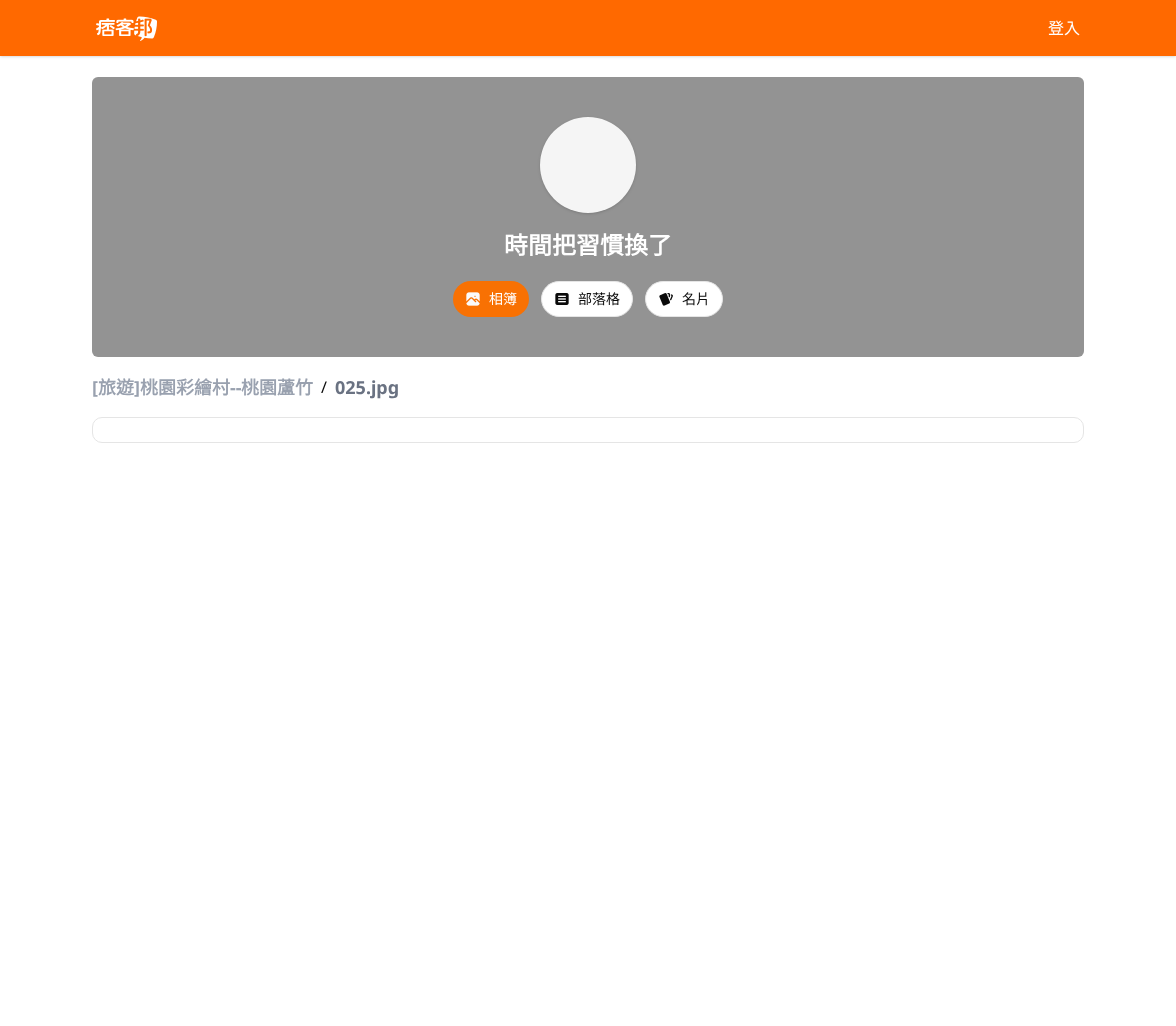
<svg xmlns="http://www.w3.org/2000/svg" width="1176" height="1026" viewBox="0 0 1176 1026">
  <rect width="100%" height="100%" fill="#fff"/>
  <path d="M1 2h1174v54H1z" fill="#0000001a" filter="blur(1px)"/>
  <path d="M0 1h1176v56H0z" fill="#0000001a" filter="blur(1.5px)"/>
  <path d="M0 0h1176v56H0z" fill="#ff6900"/>
  <image x="96" y="16" width="61" height="25" href="img/1.png"/>
  <rect x="92" y="77" width="992" height="280" rx="6" fill="#939393"/>
  <rect x="541" y="119" width="94" height="94" rx="47" fill="#0000001a" filter="blur(1px)"/>
  <rect x="540" y="118" width="96" height="96" rx="48" fill="#0000001a" filter="blur(1.5px)"/>
  <circle cx="588" cy="165" r="48" fill="#f5f5f5"/>
  <rect x="453" y="281" width="76" height="36" rx="18" fill="#f87103"/>
  <image x="466" y="292" width="14" height="14" href="img/2.png"/>
  <rect x="541.5" y="281.5" width="91" height="35" rx="17.5" fill="#fff" stroke="#e5e5e5"/>
  <image x="555" y="293" width="14" height="12" href="img/3.png"/>
  <rect x="645.5" y="281.5" width="77" height="35" rx="17.5" fill="#fff" stroke="#e5e5e5"/>
  <image x="659" y="293" width="14" height="13" href="img/4.png"/>
  <rect x="92.5" y="417.5" width="991" height="25" rx="9.5" fill="none" stroke="#e5e5e5"/>
  <text x="1048" y="34" font-family="Noto Sans CJK TC" font-size="16" fill="#fff">登入</text>
  <text x="504" y="254" font-family="Noto Sans CJK TC" font-size="24" font-weight="bold" fill="#fff">時間把習慣換了</text>
  <text x="489" y="304" font-family="Noto Sans CJK TC" font-size="14" fill="#fff">相簿</text>
  <g font-family="Noto Sans CJK TC" font-size="14" fill="#0a0a0a">
    <text x="578" y="304">部落格</text>
    <text x="682" y="304">名片</text>
  </g>
  <text x="92" y="394" font-family="Noto Sans" font-size="18" font-weight="bold" fill="#99a1af">[</text>
  <text x="98" y="394" font-family="Noto Sans CJK TC" font-size="18" font-weight="bold" fill="#99a1af">旅遊</text>
  <text x="134" y="394" font-family="Noto Sans" font-size="18" font-weight="bold" fill="#99a1af">]</text>
  <text x="140" y="394" font-family="Noto Sans CJK TC" font-size="18" font-weight="bold" fill="#99a1af">桃園彩繪村</text>
  <text x="230" y="394" font-family="Noto Sans" font-size="18" font-weight="bold" fill="#99a1af">--</text>
  <text x="241" y="394" font-family="Noto Sans CJK TC" font-size="18" font-weight="bold" fill="#99a1af">桃園蘆竹</text>
  <text x="321" y="393" font-family="Noto Sans" font-size="16" fill="#0a0a0a">/</text>
  <text x="335" y="394" font-family="Noto Sans" font-size="18" font-weight="bold" fill="#6a7282">025.jpg</text>
</svg>
